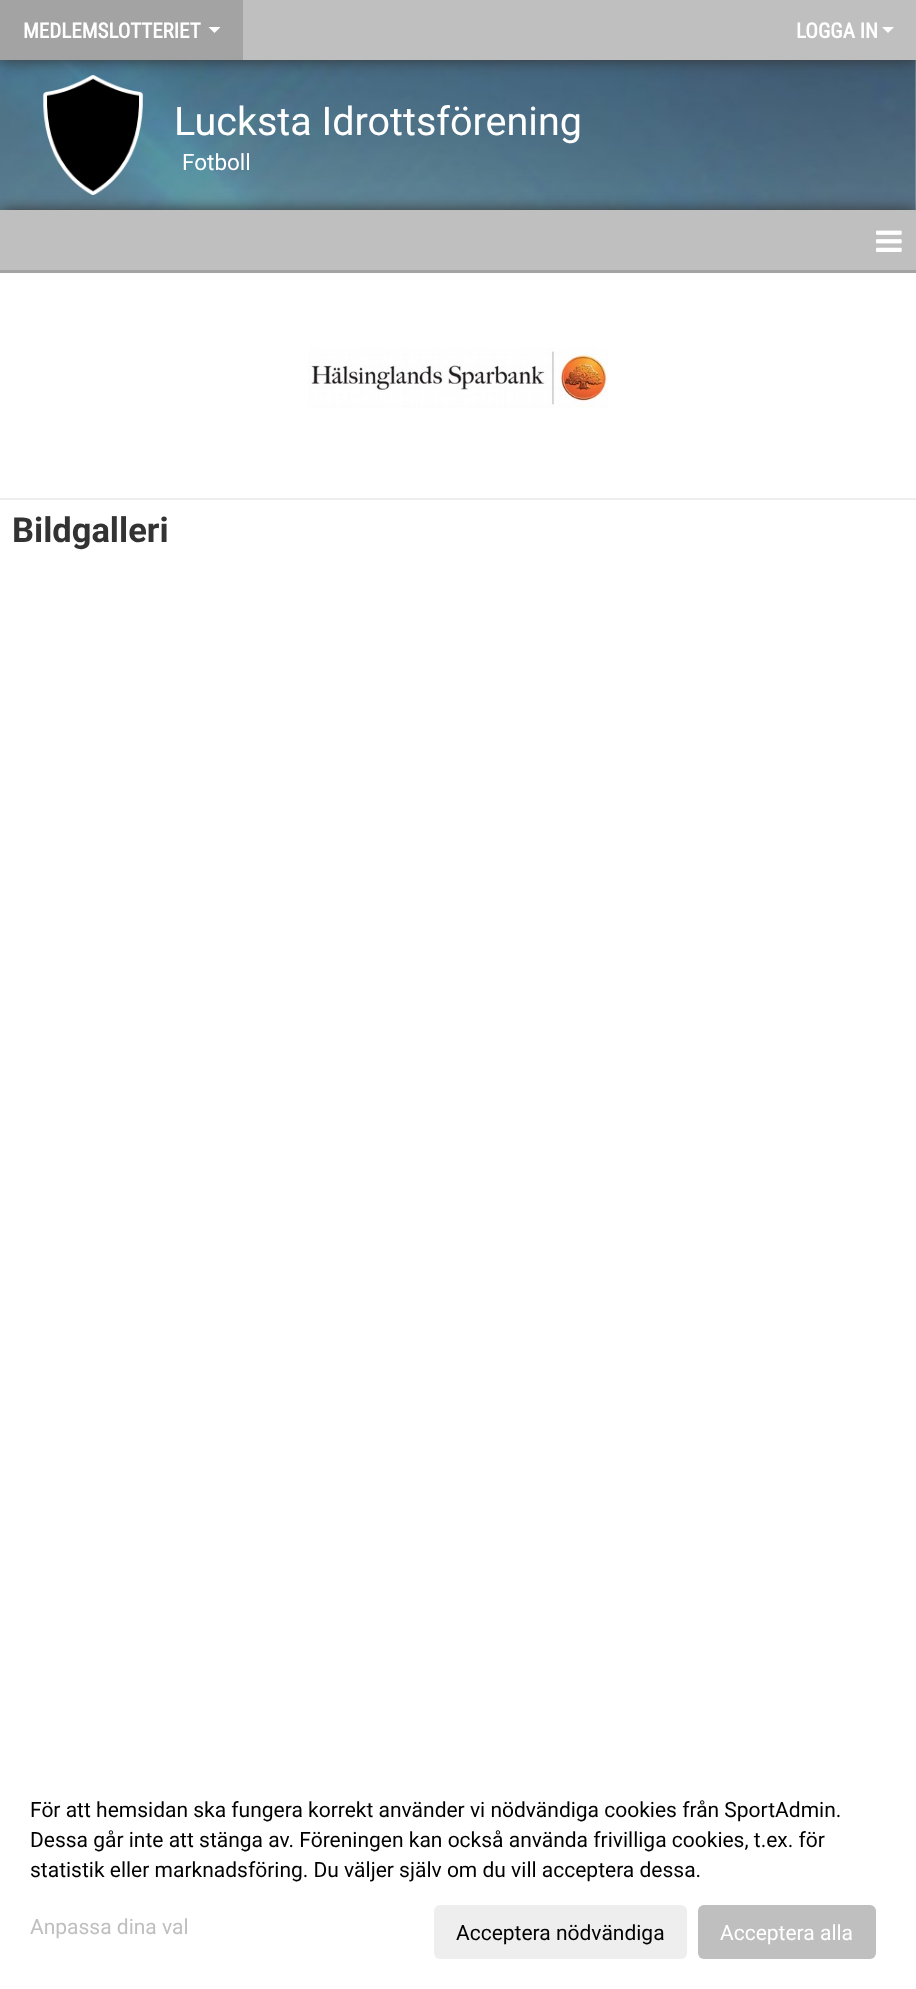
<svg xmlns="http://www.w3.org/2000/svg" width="916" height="1989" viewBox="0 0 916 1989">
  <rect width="100%" height="100%" fill="#fff"/>
  <image x="0" y="60" width="916" height="150" href="img/1.png"/>
  <path d="M0 0h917v60H0z" fill="#333" filter="blur(7.5px)"/>
  <path d="M243 0h673v60H243z" fill="#bfbfbf"/>
  <path d="M0 0h243v60H0z" fill="#a3a3a3"/>
  <path d="M208.5 27H220.5L214.5 33Z" fill="#fff"/>
  <path d="M882 27H894L888 33Z" fill="#fff"/>
  <path d="M0 210h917v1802H0z" fill="#333" filter="blur(7.5px)"/>
  <image x="42" y="75" width="102" height="120" href="img/2.png"/>
  <path d="M0 273h916v1716H0z" fill="#fff"/>
  <path d="M0 210h916v60H0z" fill="#bfbfbf"/>
  <path d="M0 270h916v3H0z" fill="#a3a3a3"/>
  <image x="876" y="230" width="26" height="22" href="img/3.png"/>
  <image x="308" y="348" width="300" height="60" href="img/4.png"/>
  <path d="M0 498h916v2H0z" fill="#eee"/>
  <rect x="434" y="1905" width="253" height="54" rx="6" fill="#eee"/>
  <rect x="698" y="1905" width="178" height="54" rx="6" fill="#bfbfbf"/>
  <g font-family="Roboto Condensed" font-size="21" font-weight="bold" fill="#fff">
    <text x="23" y="38">MEDLEMSLOTTERIET</text>
    <text x="796" y="38">LOGGA IN</text>
  </g>
  <text x="174" y="135" font-family="Roboto" font-size="39.5" fill="#fff">Lucksta Idrottsförening</text>
  <text x="182" y="170" font-family="Roboto" font-size="22.5" fill="#fff">Fotboll</text>
  <text x="12" y="542" font-family="Roboto" font-size="34.5" font-weight="bold" fill="#333">Bildgalleri</text>
  <g font-family="Roboto" font-size="21" fill="#000">
    <text x="30" y="1817">För att hemsidan ska fungera korrekt använder vi nödvändiga cookies från SportAdmin.</text>
    <text x="30" y="1847">Dessa går inte att stänga av. Föreningen kan också använda frivilliga cookies, t.ex. för</text>
    <text x="30" y="1877">statistik eller marknadsföring. Du väljer själv om du vill acceptera dessa.</text>
  </g>
  <text x="30" y="1934" font-family="Roboto" font-size="21" fill="#bfbfbf">Anpassa dina val</text>
  <text x="456" y="1940" font-family="Roboto" font-size="21" fill="#000">Acceptera nödvändiga</text>
  <text x="720" y="1940" font-family="Roboto" font-size="21" fill="#fff">Acceptera alla</text>
</svg>
